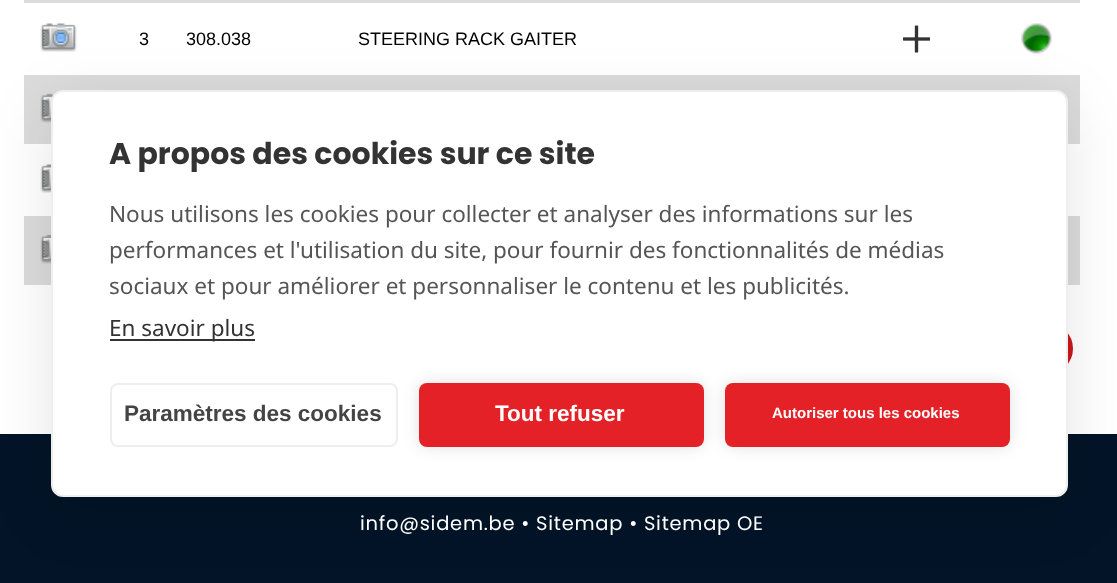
<svg xmlns="http://www.w3.org/2000/svg" width="1117" height="583" viewBox="0 0 1117 583">
  <rect width="100%" height="100%" fill="#031428"/>
  <path d="M0 0h1117v434H0z" fill="#fff"/>
  <path d="M24 0h1056v3H24z" fill="#dbdbdb"/>
  <image x="40" y="23" width="37" height="29" href="img/1.png"/>
  <image x="903" y="25" width="27" height="28" href="img/2.png"/>
  <image x="1021" y="23" width="31" height="31" href="img/3.png"/>
  <path d="M24 75h1056v69H24z" fill="#dbdbdb"/>
  <image x="40" y="93" width="14" height="30" href="img/4.png"/>
  <image x="40" y="164" width="11" height="29" href="img/5.png"/>
  <path d="M24 216h1056v69H24z" fill="#dbdbdb"/>
  <image x="40" y="234" width="11" height="30" href="img/6.png"/>
  <rect x="814.5" y="324.5" width="257" height="48" rx="24" fill="#cd1719" stroke="#cd1719" stroke-width="3"/>
  <rect x="51" y="105" width="1017" height="407" rx="12" fill="#0000001a" filter="blur(30px)"/>
  <rect x="52" y="91" width="1015" height="405" rx="11" fill="#fff" stroke="#eee" stroke-width="2"/>
  <path d="M110 339h145v2H110z" fill="#333"/>
  <rect x="111" y="384" width="286" height="62" rx="7" fill="none" stroke="#eee" stroke-width="2"/>
  <rect x="419" y="383" width="285" height="64" rx="8" fill="#0000001f" filter="blur(7.5px)"/>
  <rect x="419" y="383" width="285" height="64" rx="8" fill="#e42127"/>
  <rect x="725" y="383" width="285" height="64" rx="8" fill="#0000001f" filter="blur(7.5px)"/>
  <rect x="725" y="383" width="285" height="64" rx="8" fill="#e42127"/>
  <g font-family="Liberation Sans" font-size="18" fill="#000">
    <text x="139" y="45">3</text>
    <text x="186" y="45">308.038</text>
    <text x="358" y="45">STEERING RACK GAITER</text>
  </g>
  <text x="360" y="530" font-family="Poppins" font-size="19.5" letter-spacing="0.75" fill="#fff">info@sidem.be • Sitemap • Sitemap OE</text>
  <text x="109" y="164" font-family="Poppins" font-size="30" font-weight="bold" fill="#333">A propos des cookies sur ce site</text>
  <g font-family="Noto Sans" font-size="22.5" fill="#555">
    <text x="109" y="222">Nous utilisons les cookies pour collecter et analyser des informations sur les</text>
    <text x="109" y="258">performances et l'utilisation du site, pour fournir des fonctionnalités de médias</text>
    <text x="109" y="294">sociaux et pour améliorer et personnaliser le contenu et les publicités.</text>
  </g>
  <text x="109" y="336" font-family="Noto Sans" font-size="22.5" fill="#333">En savoir plus</text>
  <text x="124" y="421" font-family="Liberation Sans" font-size="22.5" font-weight="bold" fill="#444">Paramètres des cookies</text>
  <text x="495" y="421" font-family="Liberation Sans" font-size="22.5" font-weight="bold" fill="#fff">Tout refuser</text>
  <text x="772" y="418" font-family="Liberation Sans" font-size="15" font-weight="bold" fill="#fff">Autoriser tous les cookies</text>
</svg>
